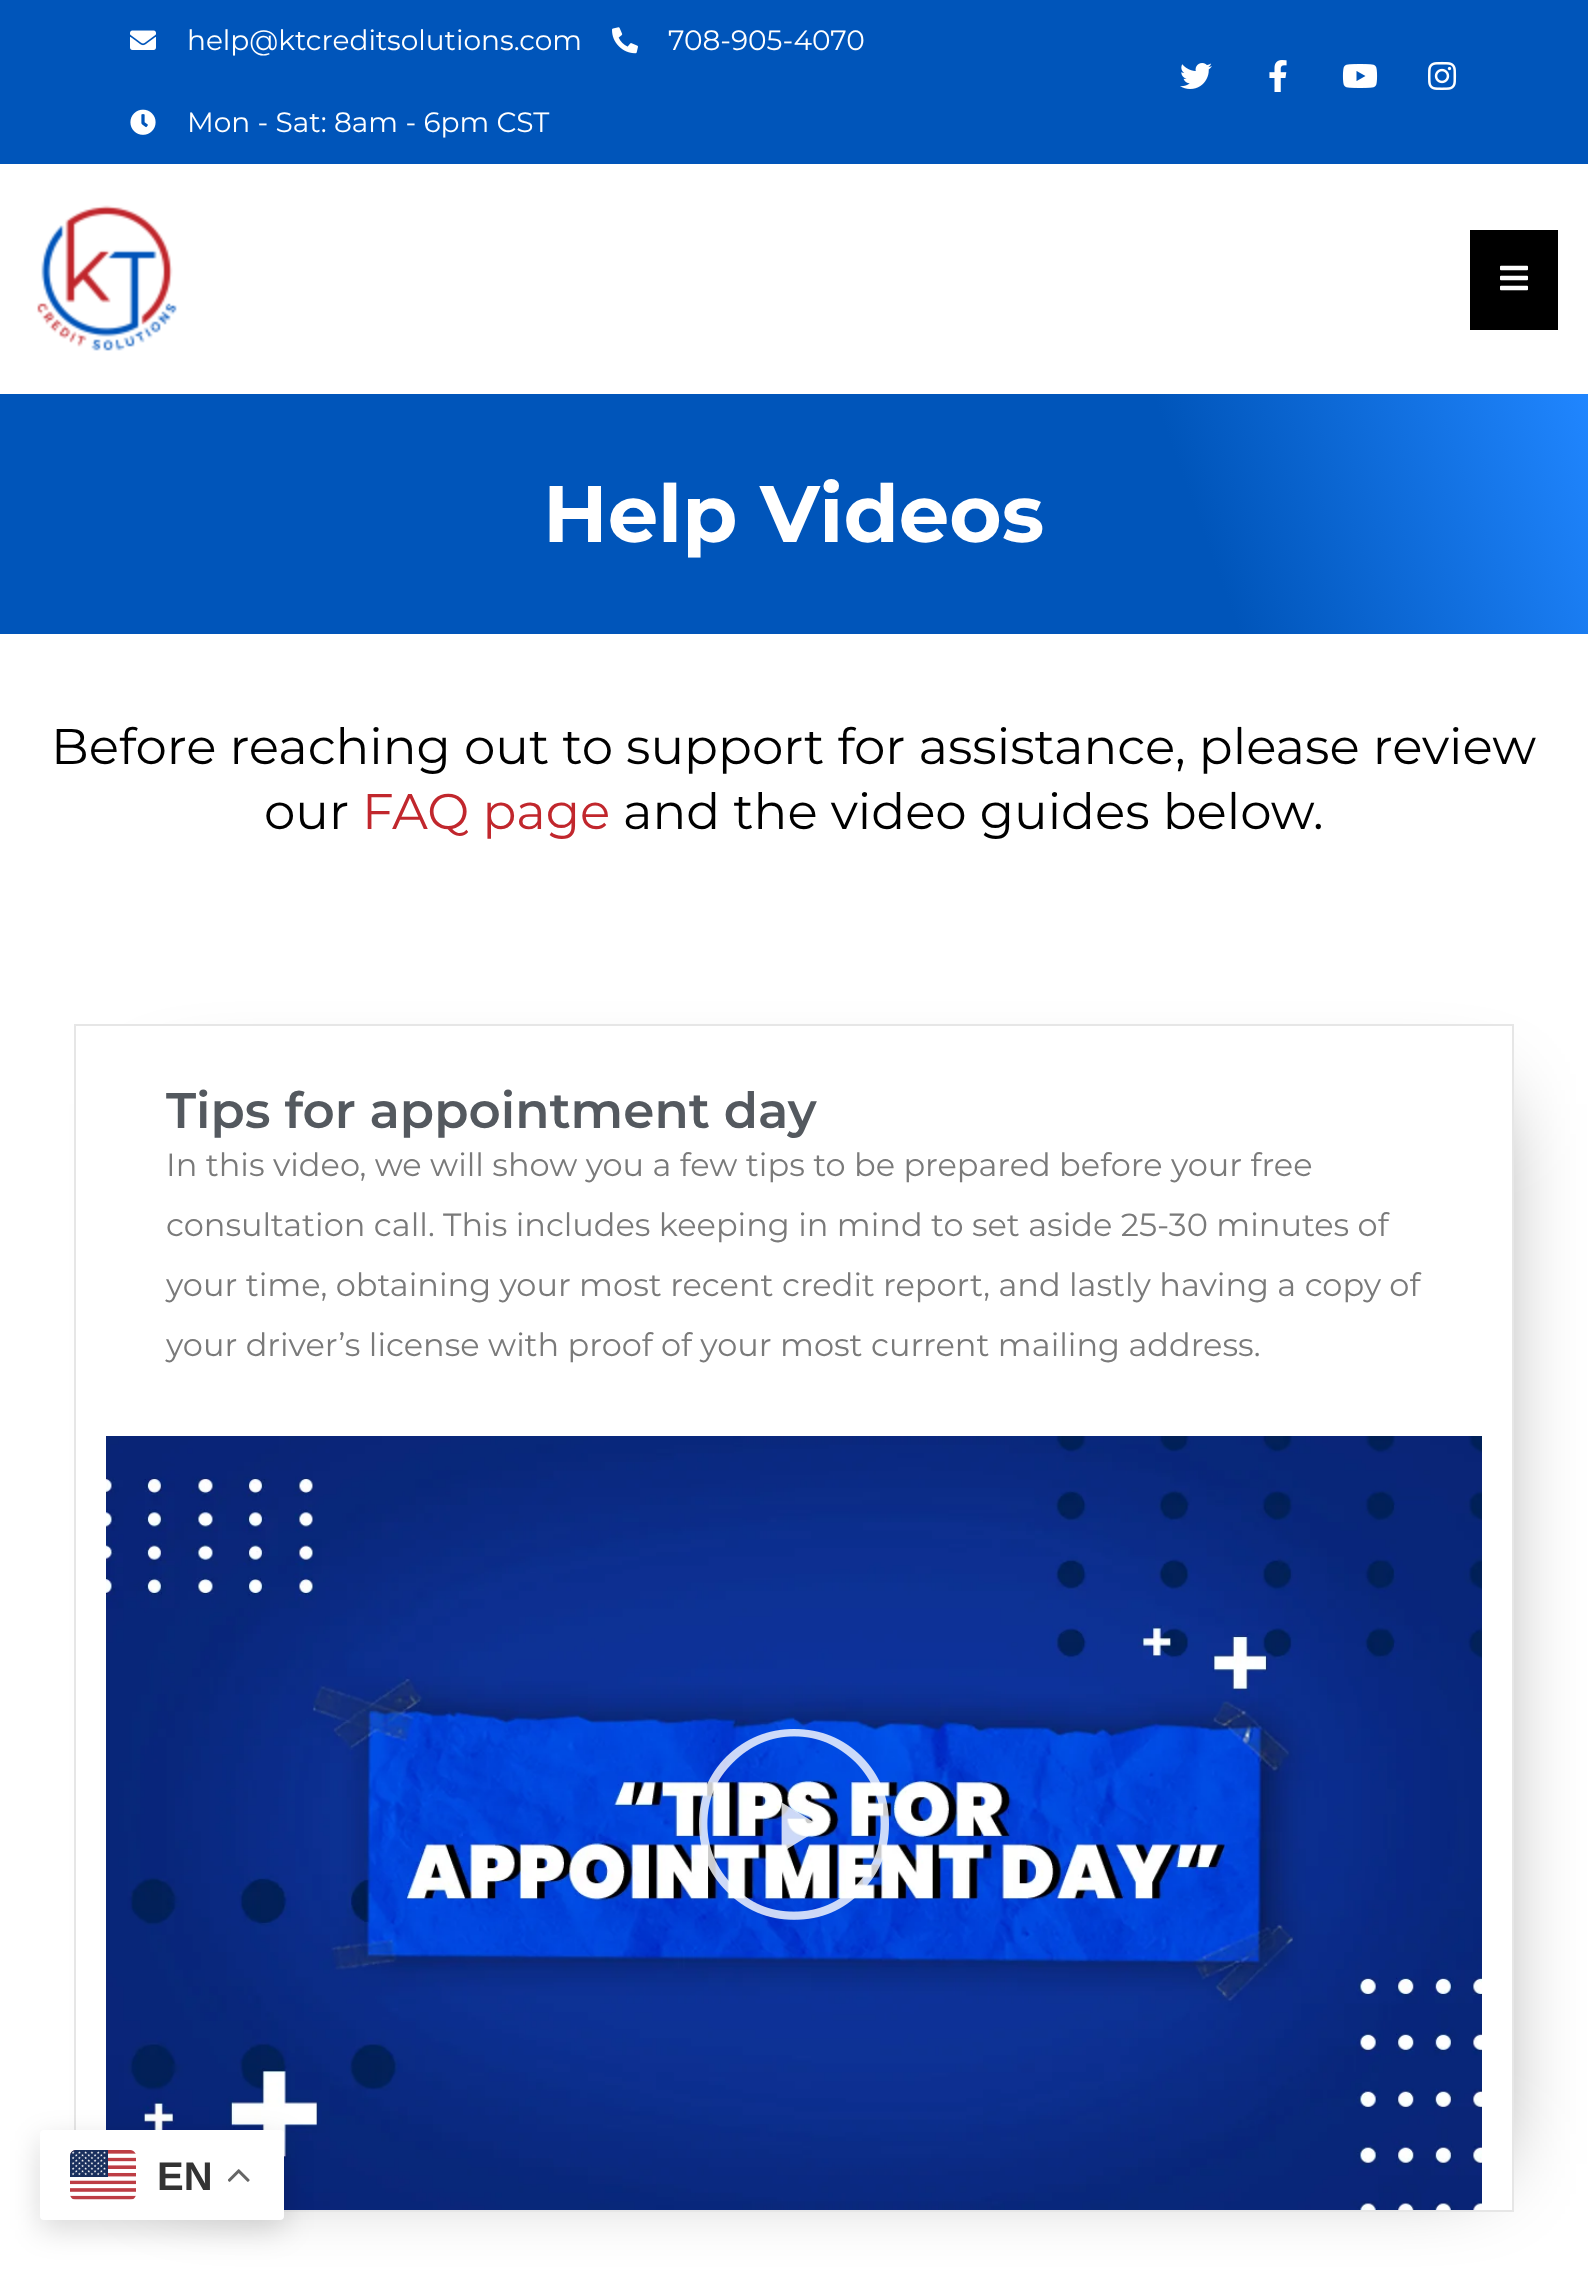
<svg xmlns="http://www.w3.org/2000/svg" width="1588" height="2279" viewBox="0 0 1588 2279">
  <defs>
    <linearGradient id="g1" gradientUnits="userSpaceOnUse" x1="54" y1="783" x2="1534" y2="245"><stop offset="0.74" stop-color="#0055ba"/><stop offset="1" stop-color="#2086ff"/></linearGradient>
    <clipPath id="clip1"><path d="M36 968H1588V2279H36ZM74 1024H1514V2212H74Z" clip-rule="evenodd"/></clipPath>
  </defs>
  <rect width="100%" height="100%" fill="#fff"/>
  <path d="M0 0h1588v164H0z" fill="#0055ba"/>
  <image x="130" y="30" width="26" height="20" href="img/1.png"/>
  <image x="612" y="27" width="26" height="27" href="img/2.png"/>
  <image x="130" y="109" width="26" height="26" href="img/3.png"/>
  <image x="1180" y="63" width="32" height="26" href="img/4.png"/>
  <image x="1269" y="60" width="18" height="32" href="img/5.png"/>
  <image x="1342" y="64" width="36" height="24" href="img/6.png"/>
  <image x="1428" y="61" width="29" height="29" href="img/7.png"/>
  <image x="37" y="205" width="140" height="146" href="img/8.png"/>
  <path d="M1470 230h88v100H1470z" fill="#000"/>
  <image x="1500" y="265" width="28" height="26" href="img/9.png"/>
  <path d="M0 394h1588v240H0z" fill="url(#g1)"/>
  <g clip-path="url(#clip1)">
    <path d="M172 1104h1312v1060H172z" fill="#00000080" filter="blur(45px)"/>
  </g>
  <path d="M75 1025h1438v1186H75z" fill="none" stroke="#e6e6e6" stroke-width="2"/>
  <image x="106" y="1436" width="1376" height="774" href="img/10.png"/>
  <image x="699" y="1729" width="190" height="191" href="img/11.png"/>
  <rect x="40" y="2140" width="244" height="90" rx="4" fill="#00000026" filter="blur(15px)"/>
  <rect x="40" y="2130" width="244" height="90" rx="4" fill="#fff"/>
  <image x="70" y="2150" width="66" height="50" href="img/12.png"/>
  <image x="228" y="2169" width="22" height="13" href="img/13.png"/>
  <g font-family="Montserrat" font-size="28" fill="#fff">
    <text x="187" y="50">help@ktcreditsolutions.com</text>
    <text x="668" y="50">708-905-4070</text>
    <text x="187" y="132">Mon - Sat: 8am - 6pm CST</text>
  </g>
  <text x="543" y="542" font-family="Montserrat" font-size="80" font-weight="bold" fill="#fff">Help Videos</text>
  <g font-family="Montserrat" font-size="50" fill="#000">
    <text x="51" y="764">Before reaching out to support for assistance, please review</text>
    <text x="264" y="829">our</text>
  </g>
  <text x="362" y="829" font-family="Montserrat" font-size="50" fill="#c1272d">FAQ page</text>
  <text x="623" y="829" font-family="Montserrat" font-size="50" fill="#000">and the video guides below.</text>
  <text x="166" y="1128" font-family="Montserrat" font-size="50" font-weight="600" fill="#54595f">Tips for appointment day</text>
  <g font-family="Montserrat" font-size="32" fill="#7a7a7a">
    <text x="166" y="1176">In this video, we will show you a few tips to be prepared before your free</text>
    <text x="166" y="1236">consultation call. This includes keeping in mind to set aside 25-30 minutes of</text>
    <text x="166" y="1296">your time, obtaining your most recent credit report, and lastly having a copy of</text>
    <text x="166" y="1356">your driver’s license with proof of your most current mailing address.</text>
  </g>
  <text x="157" y="2190" font-family="Liberation Sans" font-size="40" font-weight="bold" fill="#333">EN</text>
</svg>
